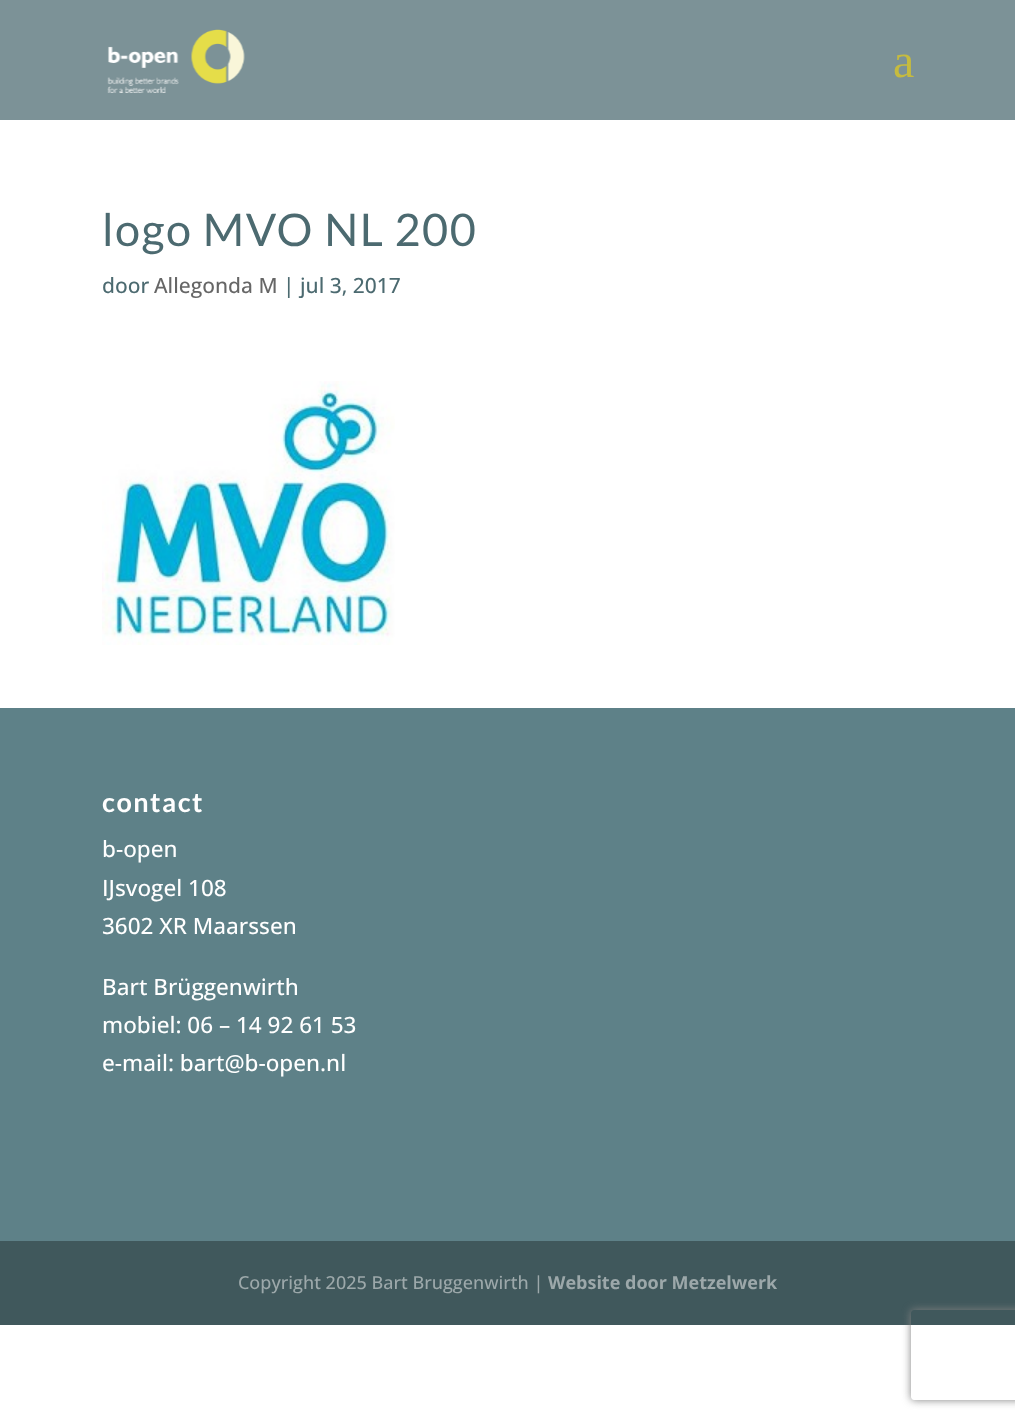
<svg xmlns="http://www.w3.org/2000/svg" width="1015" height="1420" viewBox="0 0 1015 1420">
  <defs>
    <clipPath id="clip1"><path d="M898 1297H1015V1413H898ZM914 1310H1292C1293.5 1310 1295 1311.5 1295 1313V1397C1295 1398.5 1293.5 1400 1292 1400H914C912.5 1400 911 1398.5 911 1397V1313C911 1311.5 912.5 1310 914 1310Z" clip-rule="evenodd"/></clipPath>
  </defs>
  <rect width="100%" height="100%" fill="#fff"/>
  <path d="M0 0h1015v120H0z" fill="#7c9297"/>
  <image x="107" y="29" width="138" height="64" href="img/1.png"/>
  <image x="102" y="381" width="293" height="264" href="img/2.png"/>
  <path d="M0 708h1015v533H0z" fill="#5e8188"/>
  <path d="M0 1241h1015v84H0z" fill="#40585c"/>
  <g clip-path="url(#clip1)">
    <rect x="911" y="1310" width="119" height="90" rx="3" fill="#808080" filter="blur(4px)"/>
  </g>
  <text x="893" y="77" font-family="Liberation Serif" font-size="48" fill="#c6bb3f">a</text>
  <text x="102" y="246" font-family="Lato" font-size="45" letter-spacing="1.5" fill="#4c6a70">logo MVO NL 200</text>
  <text x="102" y="293" font-family="Open Sans" font-size="21" font-weight="500" fill="#4c6a70">door</text>
  <text x="154" y="293" font-family="Open Sans" font-size="21" font-weight="500" fill="#666">Allegonda M</text>
  <text x="283" y="293" font-family="Open Sans" font-size="21" font-weight="500" fill="#4c6a70">| jul 3, 2017</text>
  <text x="102" y="812" font-family="Lato" font-size="27" font-weight="bold" letter-spacing="1.5" fill="#fff">contact</text>
  <g font-family="Open Sans" font-size="22.5" font-weight="500" fill="#fff">
    <text x="102" y="857">b-open</text>
    <text x="102" y="896">IJsvogel 108</text>
    <text x="102" y="934">3602 XR Maarssen</text>
    <text x="102" y="995">Bart Brüggenwirth</text>
    <text x="102" y="1033">mobiel: 06 – 14 92 61 53</text>
    <text x="102" y="1071">e-mail: bart@b-open.nl</text>
  </g>
  <text x="238" y="1289" font-family="Open Sans" font-size="18" font-weight="500" fill="#9ca8aa">Copyright 2025 Bart Bruggenwirth |</text>
  <text x="548" y="1289" font-family="Open Sans" font-size="18" font-weight="bold" fill="#9ca8aa">Website door Metzelwerk</text>
</svg>
